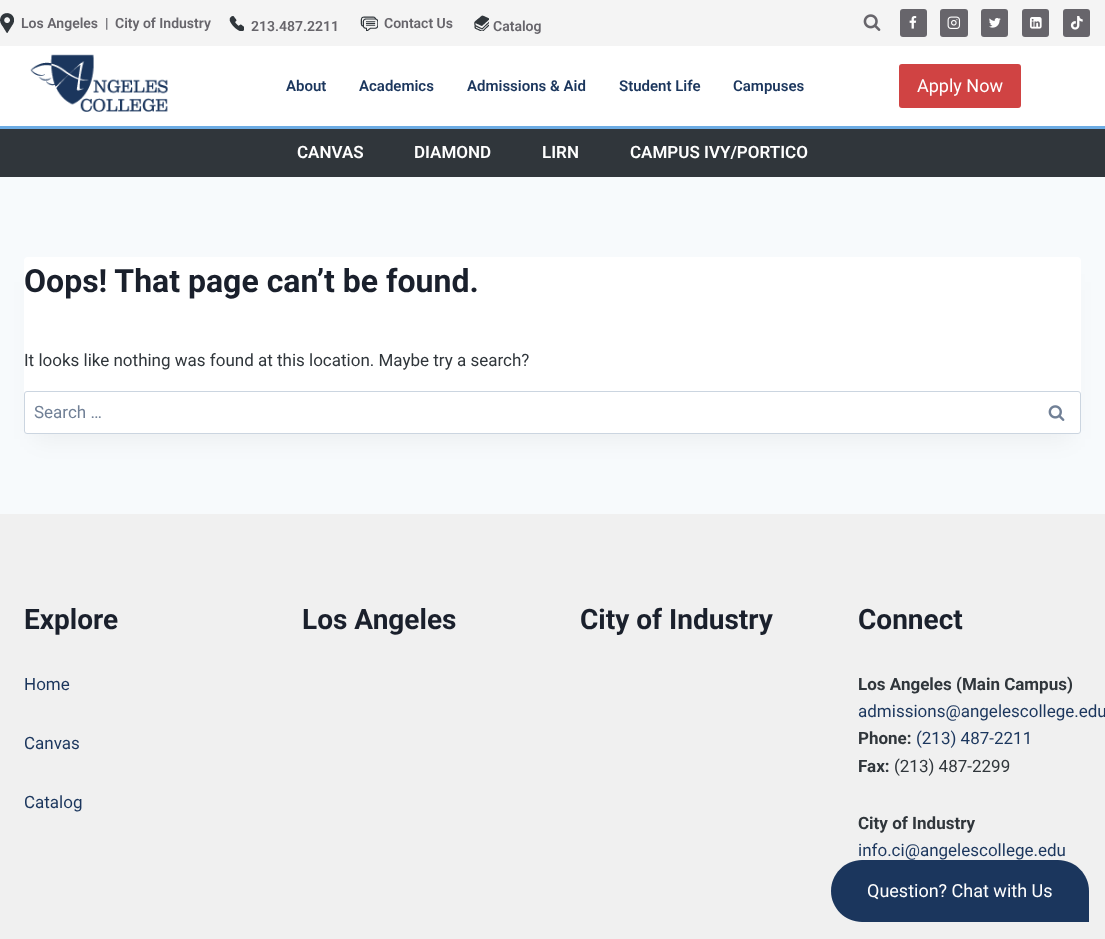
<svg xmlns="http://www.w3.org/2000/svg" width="1105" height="939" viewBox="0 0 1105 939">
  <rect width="100%" height="100%" fill="#f7fafc"/>
  <path d="M0 0h1105v46H0z" fill="#f4f4f4"/>
  <image x="0" y="13" width="14" height="20" href="img/1.png"/>
  <image x="229" y="16" width="15" height="15" href="img/2.png"/>
  <image x="360" y="16" width="18" height="15" href="img/3.png"/>
  <image x="474" y="15" width="15" height="16" href="img/4.png"/>
  <image x="863" y="14" width="18" height="17" href="img/5.png"/>
  <rect x="900" y="9" width="27" height="28" rx="3" fill="#67656b"/>
  <image x="909" y="16" width="8" height="13" href="img/6.png"/>
  <rect x="940" y="9" width="28" height="28" rx="3" fill="#67656b"/>
  <image x="947" y="16" width="14" height="13" href="img/7.png"/>
  <rect x="981" y="9" width="27" height="28" rx="3" fill="#67656b"/>
  <image x="989" y="18" width="12" height="10" href="img/8.png"/>
  <rect x="1022" y="9" width="27" height="28" rx="3" fill="#67656b"/>
  <image x="1029" y="17" width="13" height="12" href="img/9.png"/>
  <rect x="1063" y="9" width="27" height="28" rx="3" fill="#67656b"/>
  <image x="1070" y="16" width="13" height="14" href="img/10.png"/>
  <path d="M0 46h1105v80H0z" fill="#fff"/>
  <image x="30" y="54" width="138" height="58" href="img/11.png"/>
  <rect x="899" y="64" width="122" height="44" rx="3" fill="#d04343"/>
  <path d="M0 129h1105v48H0z" fill="#30363b"/>
  <path d="M0 126h1105v3H0z" fill="#6cace4"/>
  <path d="M34 282h1037v157H34z" fill="#0000000d" filter="blur(12.5px)"/>
  <rect x="24" y="257" width="1057" height="177" rx="4" fill="#fff"/>
  <rect x="24.5" y="391.5" width="1056" height="42" rx="2.5" fill="#fff" stroke="#cbd5e0"/>
  <image x="1048" y="405" width="17" height="16" href="img/12.png"/>
  <path d="M0 514h1105v425H0z" fill="#f0f0f0"/>
  <path d="M862 860H1058C1075 860 1089 874 1089 891V922H862C845 922 831 908 831 891C831 874 845 860 862 860Z" fill="#1b365d" fill-rule="evenodd"/>
  <g font-family="Roboto" font-size="14" font-weight="600" fill="#67656b">
    <text x="21" y="28">Los Angeles</text>
    <text x="105" y="28">|</text>
    <text x="115" y="28">City of Industry</text>
    <text x="251" y="31">213.487.2211</text>
    <text x="384" y="28">Contact Us</text>
    <text x="493" y="31">Catalog</text>
  </g>
  <g font-family="Roboto" font-size="15" font-weight="600" fill="#1b365d">
    <text x="286" y="91">About</text>
    <text x="359" y="91">Academics</text>
    <text x="467" y="91">Admissions &amp; Aid</text>
    <text x="619" y="91">Student Life</text>
    <text x="733" y="91">Campuses</text>
  </g>
  <text x="917" y="92" font-family="Roboto" font-size="18" fill="#fff">Apply Now</text>
  <g font-family="Roboto" font-size="17" font-weight="600" fill="#fff">
    <text x="297" y="158">CANVAS</text>
    <text x="414" y="158">DIAMOND</text>
    <text x="542" y="158">LIRN</text>
    <text x="630" y="158">CAMPUS IVY/PORTICO</text>
  </g>
  <text x="24" y="292" font-family="Roboto" font-size="32" font-weight="bold" fill="#1a202c">Oops! That page can’t be found.</text>
  <text x="24" y="366" font-family="Roboto" font-size="17" fill="#30363b">It looks like nothing was found at this location. Maybe try a search?</text>
  <text x="34" y="418" font-family="Roboto" font-size="17" fill="#718096">Search …</text>
  <text x="24" y="629" font-family="Roboto" font-size="28" font-weight="bold" fill="#1a202c">Explore</text>
  <g font-family="Roboto" font-size="17" fill="#1b365d">
    <text x="24" y="690">Home</text>
    <text x="24" y="749">Canvas</text>
    <text x="24" y="808">Catalog</text>
  </g>
  <g font-family="Roboto" font-size="28" font-weight="bold" fill="#1a202c">
    <text x="302" y="629">Los Angeles</text>
    <text x="580" y="629">City of Industry</text>
    <text x="858" y="629">Connect</text>
  </g>
  <text x="858" y="690" font-family="Roboto" font-size="17" font-weight="bold" fill="#30363b">Los Angeles (Main Campus)</text>
  <text x="858" y="717" font-family="Roboto" font-size="17" fill="#1b365d">admissions@angelescollege.edu</text>
  <text x="858" y="744" font-family="Roboto" font-size="17" font-weight="bold" fill="#30363b">Phone:</text>
  <text x="916" y="744" font-family="Roboto" font-size="17" fill="#1b365d">(213) 487-2211</text>
  <text x="858" y="772" font-family="Roboto" font-size="17" font-weight="bold" fill="#30363b">Fax:</text>
  <text x="894" y="772" font-family="Roboto" font-size="17" fill="#30363b">(213) 487-2299</text>
  <text x="858" y="829" font-family="Roboto" font-size="17" font-weight="bold" fill="#30363b">City of Industry</text>
  <text x="858" y="856" font-family="Roboto" font-size="17" fill="#1b365d">info.ci@angelescollege.edu</text>
  <text x="867" y="897" font-family="Roboto" font-size="18" fill="#fff">Question? Chat with Us</text>
</svg>
